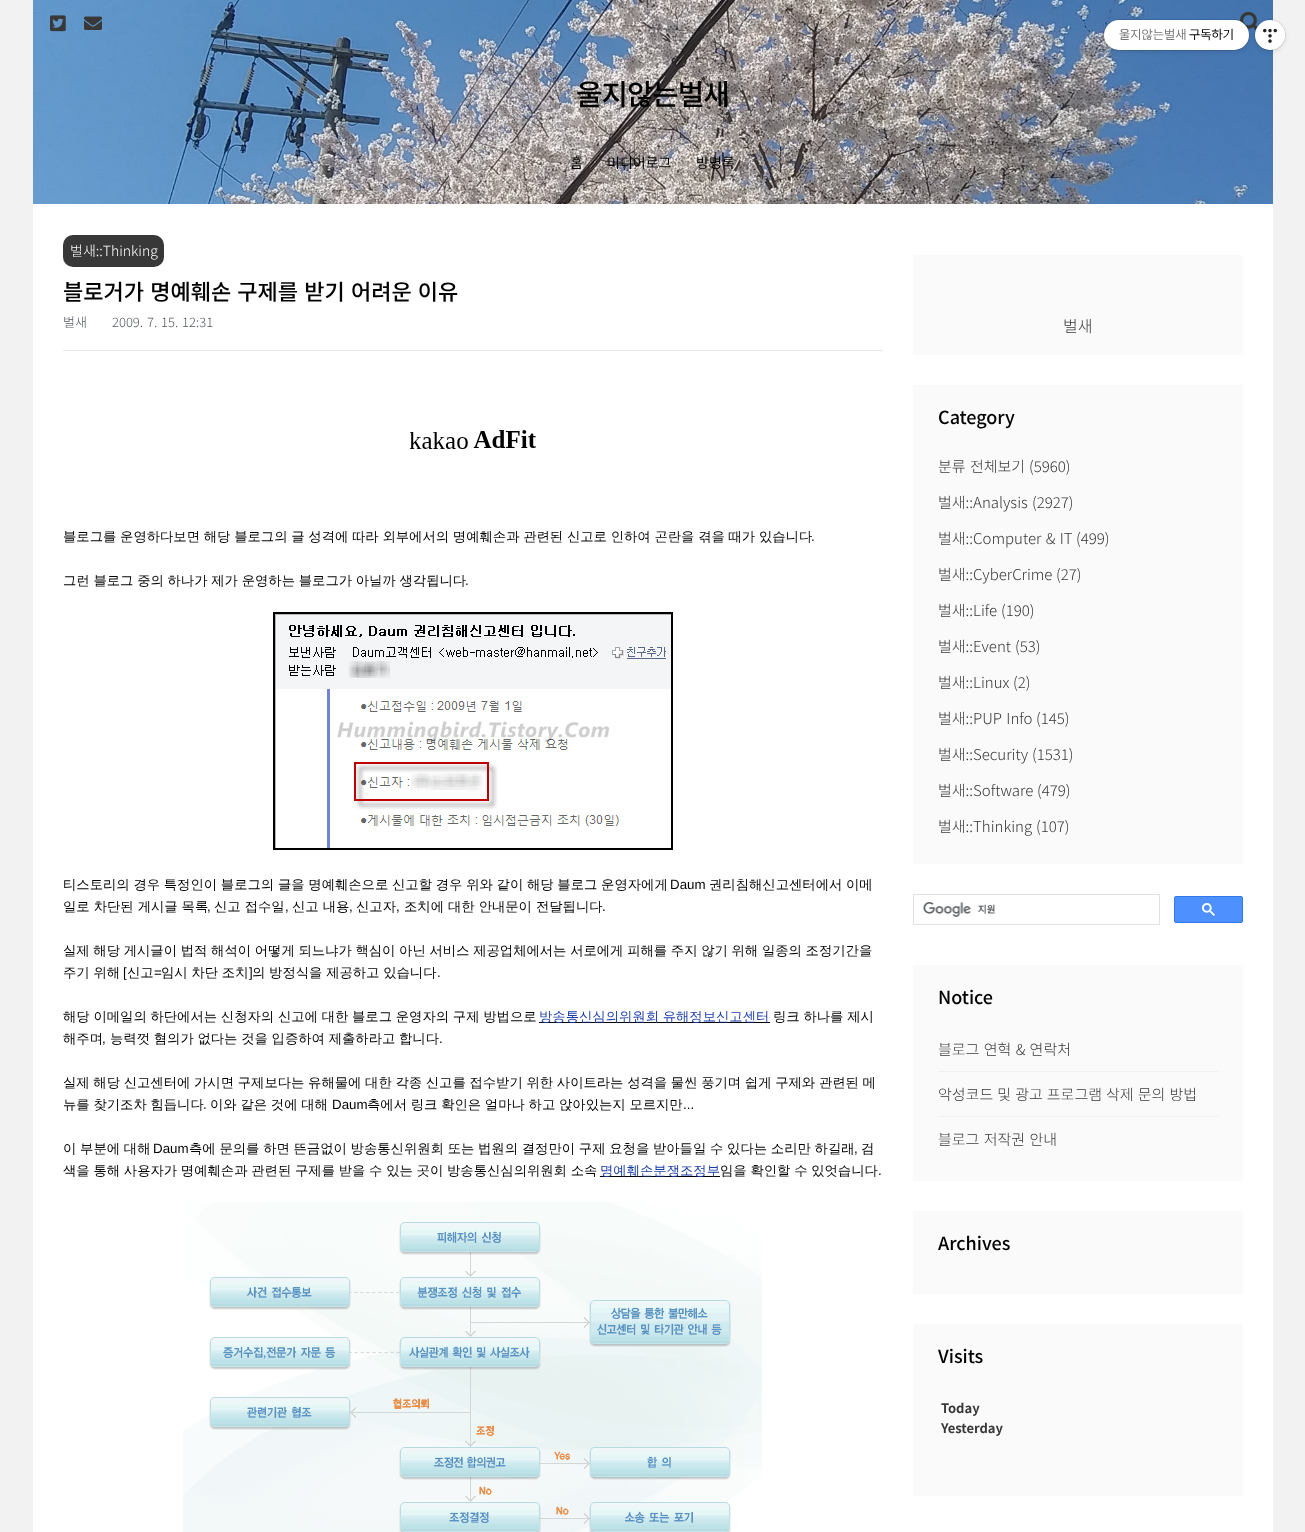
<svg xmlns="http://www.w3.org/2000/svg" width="1305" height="1532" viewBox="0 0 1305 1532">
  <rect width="100%" height="100%" fill="#f2f2f2"/>
  <image x="33" y="0" width="1240" height="204" href="img/2.png"/>
  <image x="1240" y="11" width="18" height="20" href="img/5.png"/>
  <rect x="1255" y="22" width="30" height="30" rx="15" fill="#0000001a" filter="blur(2.5px)"/>
  <circle cx="1270" cy="35" r="15.5" fill="none" stroke="#0000001a"/>
  <circle cx="1270" cy="35" r="15" fill="#fff"/>
  <rect x="1104" y="22" width="145" height="30" rx="15" fill="#0000001a" filter="blur(2.5px)"/>
  <rect x="1103.5" y="19.5" width="146" height="31" rx="15.5" fill="none" stroke="#0000001a"/>
  <rect x="1104" y="20" width="145" height="30" rx="15" fill="#fff"/>
  <image x="1263" y="28" width="14" height="15" href="img/1.png"/>
  <path d="M33 204h1240v1328H33z" fill="#fff"/>
  <image x="50" y="15" width="16" height="17" href="img/3.png"/>
  <image x="84" y="16" width="18" height="14" href="img/4.png"/>
  <path d="M63 350h820v1H63z" fill="#e8e8e8"/>
  <rect x="63" y="235" width="101" height="32" rx="10" fill="#383838"/>
  <image x="410" y="430" width="126" height="19" href="img/6.png"/>
  <image x="273" y="612" width="400" height="238" href="img/7.png"/>
  <path d="M539 1022h231v1H539z" fill="#000"/>
  <path d="M600 1176h120v1H600z" fill="#000"/>
  <image x="183" y="1202" width="579" height="330" href="img/8.png"/>
  <path d="M913 255h330v100H913z" fill="#fafafa"/>
  <path d="M913 385h330v479H913z" fill="#fafafa"/>
  <path d="M913.5 894.5h246v30H913.5z" fill="none" stroke="#dfe1e5"/>
  <image x="923" y="902" width="72" height="15" href="img/9.png"/>
  <rect x="1174.5" y="896.5" width="68" height="26" rx="1.5" fill="#4d90fe" stroke="#3079ed"/>
  <image x="1202" y="903" width="13" height="13" href="img/10.png"/>
  <path d="M913 965h330v216H913z" fill="#fafafa"/>
  <path d="M938 1071h280v1H938z" fill="#f0f0f0"/>
  <path d="M938 1116h280v1H938z" fill="#f0f0f0"/>
  <path d="M913 1211h330v83H913z" fill="#fafafa"/>
  <path d="M913 1324h330v172H913z" fill="#fafafa"/>
  <text x="1119" y="39" font-family="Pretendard" font-size="13" fill="#777">울지않는벌새</text>
  <text x="1189" y="39" font-family="Pretendard" font-size="13" fill="#000">구독하기</text>
  <text x="576" y="105" font-family="Noto Sans KR" font-size="28.75" font-weight="500" letter-spacing="-1" fill="#000">울지않는벌새</text>
  <g font-family="Noto Sans KR" font-size="14" fill="#000">
    <text x="570" y="168">홈</text>
    <text x="607" y="168">미디어로그</text>
    <text x="696" y="168">방명록</text>
  </g>
  <text x="70" y="256" font-family="Noto Sans KR" font-size="14" font-weight="300" fill="#fff">벌새::Thinking</text>
  <text x="63" y="300" word-spacing="1.25" font-family="Noto Sans KR" font-size="22" font-weight="500" fill="#000">블로거가 명예훼손 구제를 받기 어려운 이유</text>
  <g font-family="Noto Sans KR" font-size="13" font-weight="300" fill="#52575c">
    <text x="63" y="327">벌새</text>
    <text x="112" y="327" word-spacing="1">2009. 7. 15. 12:31</text>
  </g>
  <text x="63" y="541" word-spacing="-0.25" font-family="WenQuanYi Zen Hei" font-size="13.33" font-weight="500" fill="#000">블로그를 운영하다보면 해당 블로그의 글 성격에 따라 외부에서의 명예훼손과 관련된 신고로 인하여 곤란을 겪을 때가 있습니다</text>
  <text x="811" y="541" font-family="Liberation Sans" font-size="13.33" fill="#000">.</text>
  <text x="63" y="585" word-spacing="-0.25" font-family="WenQuanYi Zen Hei" font-size="13.33" font-weight="500" fill="#000">그런 블로그 중의 하나가 제가 운영하는 블로그가 아닐까 생각됩니다</text>
  <text x="465" y="585" font-family="Liberation Sans" font-size="13.33" fill="#000">.</text>
  <text x="63" y="889" word-spacing="-0.25" font-family="WenQuanYi Zen Hei" font-size="13.33" font-weight="500" fill="#000">티스토리의 경우 특정인이 블로그의 글을 명예훼손으로 신고할 경우 위와 같이 해당 블로그 운영자에게</text>
  <text x="670" y="889" font-family="Liberation Sans" font-size="13.33" fill="#000">Daum</text>
  <g font-family="WenQuanYi Zen Hei" font-size="13.33" font-weight="500" fill="#000">
    <text x="709" y="889" word-spacing="-0.25">권리침해신고센터에서 이메</text>
    <text x="63" y="911">일로 차단된 게시글 목록</text>
  </g>
  <text x="207" y="911" font-family="Liberation Sans" font-size="13.33" fill="#000">,</text>
  <text x="214" y="911" font-family="WenQuanYi Zen Hei" font-size="13.33" font-weight="500" fill="#000">신고 접수일</text>
  <text x="285" y="911" font-family="Liberation Sans" font-size="13.33" fill="#000">,</text>
  <text x="292" y="911" font-family="WenQuanYi Zen Hei" font-size="13.33" font-weight="500" fill="#000">신고 내용</text>
  <text x="349" y="911" font-family="Liberation Sans" font-size="13.33" fill="#000">,</text>
  <text x="356" y="911" font-family="WenQuanYi Zen Hei" font-size="13.33" font-weight="500" fill="#000">신고자</text>
  <text x="396" y="911" font-family="Liberation Sans" font-size="13.33" fill="#000">,</text>
  <text x="404" y="911" font-family="WenQuanYi Zen Hei" font-size="13.33" font-weight="500" fill="#000">조치에 대한 안내문이 전달됩니다</text>
  <text x="602" y="911" font-family="Liberation Sans" font-size="13.33" fill="#000">.</text>
  <g font-family="WenQuanYi Zen Hei" font-size="13.33" font-weight="500" fill="#000">
    <text x="63" y="955" word-spacing="-0.3">실제 해당 게시글이 법적 해석이 어떻게 되느냐가 핵심이 아닌 서비스 제공업체에서는 서로에게 피해를 주지 않기 위해 일종의 조정기간을</text>
    <text x="63" y="977" word-spacing="-0.25">주기 위해</text>
  </g>
  <text x="123" y="977" font-family="Liberation Sans" font-size="13.33" fill="#000">[</text>
  <text x="127" y="977" font-family="WenQuanYi Zen Hei" font-size="13.33" font-weight="500" fill="#000">신고</text>
  <text x="154" y="977" font-family="Liberation Sans" font-size="13.33" fill="#000">=</text>
  <text x="161" y="977" word-spacing="-0.25" font-family="WenQuanYi Zen Hei" font-size="13.33" font-weight="500" fill="#000">임시 차단 조치</text>
  <text x="249" y="977" font-family="Liberation Sans" font-size="13.33" fill="#000">]</text>
  <text x="252" y="977" word-spacing="-0.25" font-family="WenQuanYi Zen Hei" font-size="13.33" font-weight="500" fill="#000">의 방정식을 제공하고 있습니다</text>
  <text x="437" y="977" font-family="Liberation Sans" font-size="13.33" fill="#000">.</text>
  <text x="63" y="1021" word-spacing="-0.25" font-family="WenQuanYi Zen Hei" font-size="13.33" font-weight="500" fill="#000">해당 이메일의 하단에서는 신청자의 신고에 대한 블로그 운영자의 구제 방법으로</text>
  <text x="539" y="1021" word-spacing="-0.25" font-family="WenQuanYi Zen Hei" font-size="13.33" font-weight="500" fill="#193da9">방송통신심의위원회 유해정보신고센터</text>
  <g font-family="WenQuanYi Zen Hei" font-size="13.33" font-weight="500" fill="#000">
    <text x="773" y="1021" word-spacing="-0.25">링크 하나를 제시</text>
    <text x="63" y="1043">해주며</text>
  </g>
  <text x="102" y="1043" font-family="Liberation Sans" font-size="13.33" fill="#000">,</text>
  <text x="110" y="1043" word-spacing="-0.25" font-family="WenQuanYi Zen Hei" font-size="13.33" font-weight="500" fill="#000">능력껏 혐의가 없다는 것을 입증하여 제출하라고 합니다</text>
  <text x="439" y="1043" font-family="Liberation Sans" font-size="13.33" fill="#000">.</text>
  <g font-family="WenQuanYi Zen Hei" font-size="13.33" font-weight="500" fill="#000">
    <text x="63" y="1087" word-spacing="-0.3">실제 해당 신고센터에 가시면 구제보다는 유해물에 대한 각종 신고를 접수받기 위한 사이트라는 성격을 물씬 풍기며 쉽게 구제와 관련된 메</text>
    <text x="63" y="1109" word-spacing="-0.25">뉴를 찾기조차 힘듭니다</text>
  </g>
  <text x="203" y="1109" font-family="Liberation Sans" font-size="13.33" fill="#000">.</text>
  <text x="210" y="1109" word-spacing="-0.25" font-family="WenQuanYi Zen Hei" font-size="13.33" font-weight="500" fill="#000">이와 같은 것에 대해</text>
  <text x="332" y="1109" font-family="Liberation Sans" font-size="13.33" fill="#000">Daum</text>
  <text x="367" y="1109" word-spacing="-0.25" font-family="WenQuanYi Zen Hei" font-size="13.33" font-weight="500" fill="#000">측에서 링크 확인은 얼마나 하고 앉아있는지 모르지만</text>
  <text x="683" y="1109" font-family="Liberation Sans" font-size="13.33" fill="#000">...</text>
  <text x="63" y="1153" word-spacing="-0.25" font-family="WenQuanYi Zen Hei" font-size="13.33" font-weight="500" fill="#000">이 부분에 대해</text>
  <text x="153" y="1153" font-family="Liberation Sans" font-size="13.33" fill="#000">Daum</text>
  <text x="189" y="1153" word-spacing="-0.25" font-family="WenQuanYi Zen Hei" font-size="13.33" font-weight="500" fill="#000">측에 문의를 하면 뜬금없이 방송통신위원회 또는 법원의 결정만이 구제 요청을 받아들일 수 있다는 소리만 하길래</text>
  <text x="854" y="1153" font-family="Liberation Sans" font-size="13.33" fill="#000">,</text>
  <g font-family="WenQuanYi Zen Hei" font-size="13.33" font-weight="500" fill="#000">
    <text x="861" y="1153">검</text>
    <text x="63" y="1175" word-spacing="-0.25">색을 통해 사용자가 명예훼손과 관련된 구제를 받을 수 있는 곳이 방송통신심의위원회 소속</text>
  </g>
  <text x="600" y="1175" font-family="WenQuanYi Zen Hei" font-size="13.33" font-weight="500" fill="#193da9">명예훼손분쟁조정부</text>
  <text x="720" y="1175" word-spacing="-0.25" font-family="WenQuanYi Zen Hei" font-size="13.33" font-weight="500" fill="#000">임을 확인할 수 있엇습니다</text>
  <text x="878" y="1175" font-family="Liberation Sans" font-size="13.33" fill="#000">.</text>
  <text x="1063" y="332" font-family="Noto Sans KR" font-size="16" font-weight="300" fill="#383838">벌새</text>
  <text x="938" y="424" font-family="Noto Sans KR" font-size="18" font-weight="500" fill="#000">Category</text>
  <g font-family="Noto Sans KR" font-size="15" font-weight="300" fill="#383838">
    <text x="938" y="472" word-spacing="1">분류 전체보기</text>
    <text x="1029" y="472">(5960)</text>
    <text x="938" y="508">벌새::Analysis</text>
    <text x="1032" y="508">(2927)</text>
    <text x="938" y="544" word-spacing="1">벌새::Computer &amp; IT</text>
    <text x="1076" y="544">(499)</text>
    <text x="938" y="580">벌새::CyberCrime</text>
    <text x="1056" y="580">(27)</text>
    <text x="938" y="616">벌새::Life</text>
    <text x="1001" y="616">(190)</text>
    <text x="938" y="652">벌새::Event</text>
    <text x="1015" y="652">(53)</text>
    <text x="938" y="688">벌새::Linux</text>
    <text x="1013" y="688">(2)</text>
    <text x="938" y="724" word-spacing="1">벌새::PUP Info</text>
    <text x="1036" y="724">(145)</text>
    <text x="938" y="760">벌새::Security</text>
    <text x="1032" y="760">(1531)</text>
    <text x="938" y="796">벌새::Software</text>
    <text x="1037" y="796">(479)</text>
    <text x="938" y="832">벌새::Thinking</text>
    <text x="1036" y="832">(107)</text>
  </g>
  <text x="938" y="1004" font-family="Noto Sans KR" font-size="18" font-weight="500" fill="#000">Notice</text>
  <g font-family="Noto Sans KR" font-size="15" font-weight="300" fill="#383838">
    <text x="938" y="1055" word-spacing="1">블로그 연혁 &amp; 연락처</text>
    <text x="938" y="1100" word-spacing="0.75">악성코드 및 광고 프로그램 삭제 문의 방법</text>
    <text x="938" y="1145" word-spacing="1">블로그 저작권 안내</text>
  </g>
  <g font-family="Noto Sans KR" font-size="18" font-weight="500" fill="#000">
    <text x="938" y="1250">Archives</text>
    <text x="938" y="1363">Visits</text>
  </g>
  <g font-family="Noto Sans KR" font-size="13" font-weight="bold" fill="#383838">
    <text x="941" y="1413">Today</text>
    <text x="941" y="1433">Yesterday</text>
  </g>
</svg>
